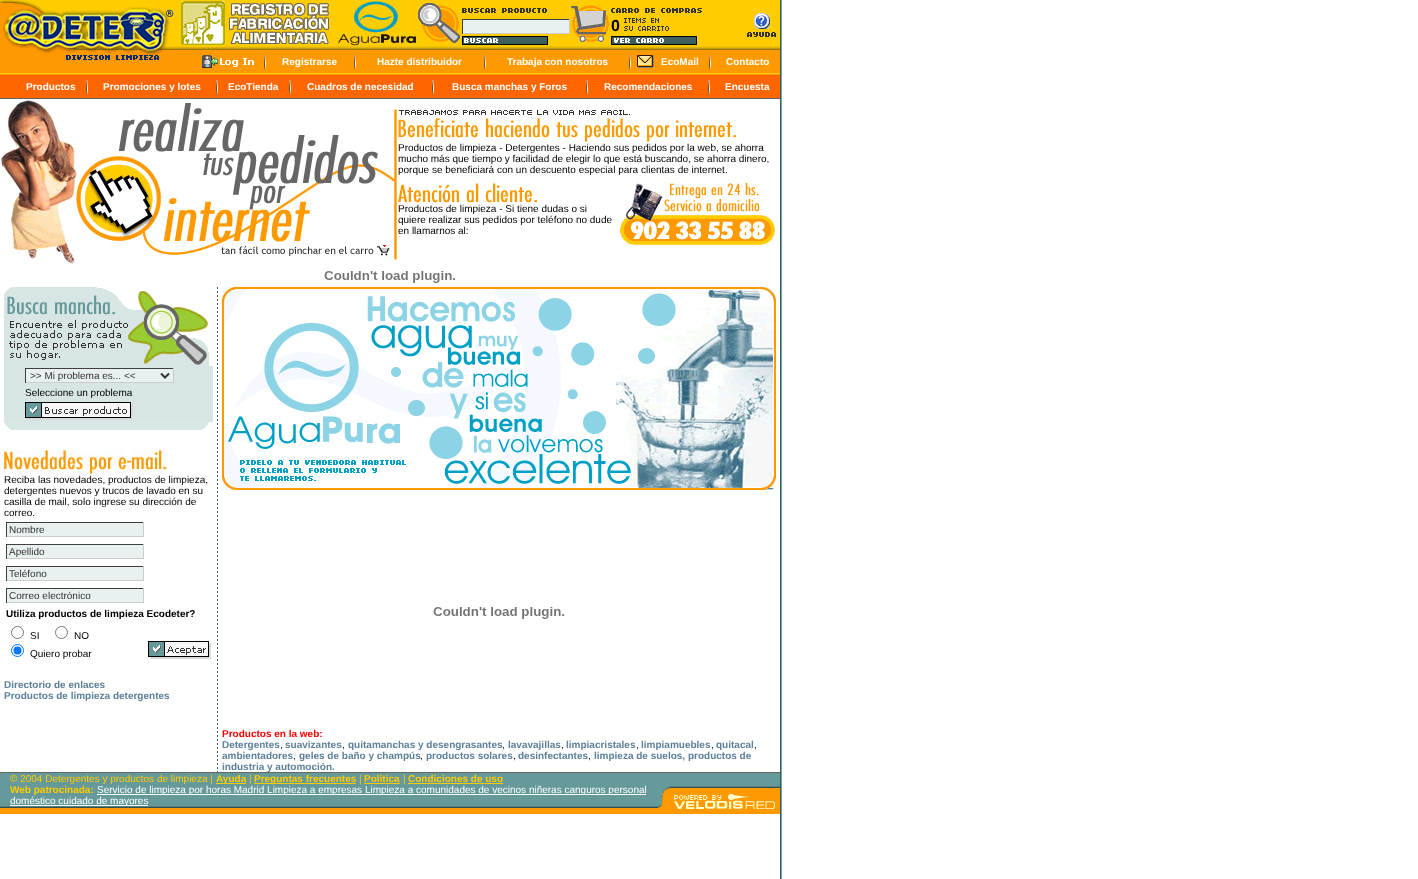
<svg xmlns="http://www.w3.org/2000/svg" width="1418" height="879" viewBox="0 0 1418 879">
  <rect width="100%" height="100%" fill="#fff"/>
  <image x="780" y="0" width="2" height="879" href="img/1.png"/>
  <image x="0" y="0" width="175" height="73" href="img/2.png"/>
  <path d="M175 0h605v46H175z" fill="#fc0"/>
  <image x="181" y="1" width="148" height="44" href="img/3.png"/>
  <image x="337" y="0" width="80" height="46" href="img/4.png"/>
  <image x="418" y="3" width="42" height="40" href="img/5.png"/>
  <image x="571" y="5" width="38" height="37" href="img/6.png"/>
  <image x="462" y="8" width="85" height="5" href="img/7.png"/>
  <image x="611" y="8" width="91" height="5" href="img/8.png"/>
  <image x="747" y="13" width="29" height="24" href="img/9.png"/>
  <path d="M463 20h106v13H463z" fill="#e8f0f0"/>
  <path d="M462 19h108v1H462z" fill="#3f3f3f"/>
  <path d="M569 19h1v15H569z" fill="#ccc"/>
  <path d="M462 33h108v1H462z" fill="#ccc"/>
  <path d="M462 19h1v15H462z" fill="#3f3f3f"/>
  <image x="624" y="18" width="45" height="13" href="img/10.png"/>
  <image x="462" y="36" width="86" height="9" href="img/11.png"/>
  <image x="611" y="36" width="86" height="9" href="img/12.png"/>
  <image x="175" y="46" width="605" height="4" href="img/13.png"/>
  <path d="M175 50h605v23H175z" fill="#f90"/>
  <image x="202" y="55" width="52" height="13" href="img/14.png"/>
  <image x="264" y="55" width="2" height="14" href="img/15.png"/>
  <image x="354" y="55" width="2" height="14" href="img/15.png"/>
  <image x="484" y="55" width="2" height="14" href="img/15.png"/>
  <image x="629" y="55" width="2" height="14" href="img/15.png"/>
  <image x="637" y="55" width="17" height="13" href="img/16.png"/>
  <image x="709" y="55" width="2" height="14" href="img/15.png"/>
  <path d="M0 73h780v1H0z" fill="#fc0"/>
  <path d="M0 74h780v1H0z" fill="#f90"/>
  <path d="M0 75h780v23H0z" fill="#f60"/>
  <image x="86" y="80" width="2" height="14" href="img/15.png"/>
  <image x="216" y="80" width="2" height="14" href="img/15.png"/>
  <image x="289" y="80" width="2" height="14" href="img/15.png"/>
  <image x="432" y="80" width="2" height="14" href="img/15.png"/>
  <image x="586" y="80" width="2" height="14" href="img/15.png"/>
  <image x="708" y="80" width="2" height="14" href="img/15.png"/>
  <path d="M0 98h780v1H0z" fill="#666"/>
  <image x="1" y="99" width="396" height="165" href="img/17.png"/>
  <image x="398" y="110" width="339" height="32" href="img/18.png"/>
  <image x="398" y="183" width="139" height="20" href="img/19.png"/>
  <image x="620" y="183" width="155" height="62" href="img/20.png"/>
  <image x="324" y="271" width="131" height="12" href="img/21.png"/>
  <image x="4" y="287" width="205" height="79" href="img/22.png"/>
  <path d="M4 366h209v56H4z" fill="#d8e5e5"/>
  <path d="M26 369h147v13H26z" fill="#e8f0f0"/>
  <path d="M25 368h149v1H25z" fill="#3f3f3f"/>
  <path d="M173 368h1v15H173z" fill="#ccc"/>
  <path d="M25 382h149v1H25z" fill="#ccc"/>
  <path d="M25 368h1v15H25z" fill="#3f3f3f"/>
  <path d="M161 373.5L165 377.5L169 373.5" fill="none" stroke="#333" stroke-width="2"/>
  <image x="25" y="402" width="108" height="18" href="img/23.png"/>
  <image x="4" y="422" width="205" height="8" href="img/24.png"/>
  <image x="4" y="450" width="163" height="24" href="img/25.png"/>
  <path d="M7 523h136v13H7z" fill="#e8f0f0"/>
  <path d="M6 522h138v1H6z" fill="#3f3f3f"/>
  <path d="M143 522h1v15H143z" fill="#ccc"/>
  <path d="M6 536h138v1H6z" fill="#ccc"/>
  <path d="M6 522h1v15H6z" fill="#3f3f3f"/>
  <path d="M7 545h136v13H7z" fill="#e8f0f0"/>
  <path d="M6 544h138v1H6z" fill="#3f3f3f"/>
  <path d="M143 544h1v15H143z" fill="#ccc"/>
  <path d="M6 558h138v1H6z" fill="#ccc"/>
  <path d="M6 544h1v15H6z" fill="#3f3f3f"/>
  <path d="M7 567h136v13H7z" fill="#e8f0f0"/>
  <path d="M6 566h138v1H6z" fill="#3f3f3f"/>
  <path d="M143 566h1v15H143z" fill="#ccc"/>
  <path d="M6 580h138v1H6z" fill="#ccc"/>
  <path d="M6 566h1v15H6z" fill="#3f3f3f"/>
  <path d="M7 589h136v13H7z" fill="#e8f0f0"/>
  <path d="M6 588h138v1H6z" fill="#3f3f3f"/>
  <path d="M143 588h1v15H143z" fill="#ccc"/>
  <path d="M6 602h138v1H6z" fill="#ccc"/>
  <path d="M6 588h1v15H6z" fill="#3f3f3f"/>
  <circle cx="17.5" cy="632.5" r="6" fill="none" stroke="#767676"/>
  <circle cx="61.5" cy="632.5" r="6" fill="none" stroke="#767676"/>
  <circle cx="17.5" cy="650.5" r="6" fill="none" stroke="#0075ff"/>
  <circle cx="17.5" cy="650.5" r="4" fill="#0075ff"/>
  <image x="148" y="641" width="63" height="18" href="img/26.png"/>
  <image x="217" y="287" width="1" height="485" href="img/27.png"/>
  <image x="222" y="287" width="554" height="203" href="img/28.png"/>
  <image x="433" y="607" width="131" height="12" href="img/21.png"/>
  <path d="M0 772h780v1H0z" fill="#666"/>
  <path d="M0 773h657v33H0z" fill="#699"/>
  <path d="M657 773h123v13H657z" fill="#699"/>
  <image x="657" y="786" width="123" height="28" href="img/29.png"/>
  <path d="M216 783h30v1H216z" fill="#fc0"/>
  <path d="M254 783h102v1H254z" fill="#fc0"/>
  <path d="M364 783h36v1H364z" fill="#fc0"/>
  <path d="M408 783h95v1H408z" fill="#fc0"/>
  <path d="M97 794h549v1H97z" fill="#fff"/>
  <path d="M10 805h138v1H10z" fill="#fff"/>
  <text x="611" y="31" font-family="Liberation Sans" font-size="16" font-weight="bold" fill="#000">0</text>
  <g font-family="Liberation Sans" font-size="10" font-weight="bold" fill="#fff">
    <text x="282" y="65">Registrarse</text>
    <text x="377" y="65">Hazte distribuidor</text>
    <text x="507" y="65">Trabaja con nosotros</text>
    <text x="661" y="65">EcoMail</text>
    <text x="726" y="65">Contacto</text>
    <text x="26" y="90">Productos</text>
    <text x="103" y="90">Promociones y lotes</text>
    <text x="228" y="90">EcoTienda</text>
    <text x="307" y="90">Cuadros de necesidad</text>
    <text x="452" y="90">Busca manchas y Foros</text>
    <text x="604" y="90">Recomendaciones</text>
    <text x="725" y="90">Encuesta</text>
  </g>
  <g font-family="Liberation Sans" font-size="10" fill="#000">
    <text x="398" y="151">Productos de limpieza - Detergentes - Haciendo sus pedidos por la web, se ahorra</text>
    <text x="398" y="162">mucho más que tiempo y facilidad de elegir lo que está buscando, se ahorra dinero,</text>
    <text x="398" y="173">porque se beneficiará con un descuento especial para clientas de internet.</text>
    <text x="398" y="212">Productos de limpieza - Si tiene dudas o si</text>
    <text x="398" y="223">quiere realizar sus pedidos por teléfono no dude</text>
    <text x="398" y="234">en llamarnos al:</text>
  </g>
  <text x="30" y="379" font-family="Liberation Sans" font-size="10" fill="#333">&gt;&gt; Mi problema es... &lt;&lt;</text>
  <g font-family="Liberation Sans" font-size="10" fill="#000">
    <text x="25" y="396">Seleccione un problema</text>
    <text x="4" y="483">Reciba las novedades, productos de limpieza,</text>
    <text x="4" y="494">detergentes nuevos y trucos de lavado en su</text>
    <text x="4" y="505">casilla de mail, solo ingrese su dirección de</text>
    <text x="4" y="516">correo.</text>
  </g>
  <g font-family="Liberation Sans" font-size="10" fill="#333">
    <text x="9" y="533">Nombre</text>
    <text x="9" y="555">Apellido</text>
    <text x="9" y="577">Teléfono</text>
    <text x="9" y="599">Correo electrónico</text>
  </g>
  <text x="6" y="617" font-family="Liberation Sans" font-size="10" font-weight="bold" fill="#000">Utiliza productos de limpieza Ecodeter?</text>
  <g font-family="Liberation Sans" font-size="10" fill="#000">
    <text x="30" y="639">SI</text>
    <text x="74" y="639">NO</text>
    <text x="30" y="657">Quiero probar</text>
  </g>
  <g font-family="Liberation Sans" font-size="10" font-weight="bold" fill="#5c8199">
    <text x="4" y="688">Directorio de enlaces</text>
    <text x="4" y="699">Productos de limpieza detergentes</text>
  </g>
  <text x="222" y="737" font-family="Liberation Sans" font-size="10" font-weight="bold" fill="#f00">Productos en la web:</text>
  <text x="222" y="748" font-family="Liberation Sans" font-size="10" font-weight="bold" fill="#5c8199">Detergentes</text>
  <text x="280" y="748" font-family="Liberation Sans" font-size="10" fill="#000">,</text>
  <text x="285" y="748" font-family="Liberation Sans" font-size="10" font-weight="bold" fill="#5c8199">suavizantes</text>
  <text x="342" y="748" font-family="Liberation Sans" font-size="10" fill="#000">,</text>
  <text x="348" y="748" font-family="Liberation Sans" font-size="10" font-weight="bold" fill="#5c8199">quitamanchas y desengrasantes</text>
  <text x="502" y="748" font-family="Liberation Sans" font-size="10" fill="#000">,</text>
  <text x="508" y="748" font-family="Liberation Sans" font-size="10" font-weight="bold" fill="#5c8199">lavavajillas</text>
  <text x="561" y="748" font-family="Liberation Sans" font-size="10" fill="#000">,</text>
  <text x="566" y="748" font-family="Liberation Sans" font-size="10" font-weight="bold" fill="#5c8199">limpiacristales</text>
  <text x="636" y="748" font-family="Liberation Sans" font-size="10" fill="#000">,</text>
  <text x="641" y="748" font-family="Liberation Sans" font-size="10" font-weight="bold" fill="#5c8199">limpiamuebles</text>
  <text x="711" y="748" font-family="Liberation Sans" font-size="10" fill="#000">,</text>
  <text x="716" y="748" font-family="Liberation Sans" font-size="10" font-weight="bold" fill="#5c8199">quitacal</text>
  <text x="754" y="748" font-family="Liberation Sans" font-size="10" fill="#000">,</text>
  <text x="222" y="759" font-family="Liberation Sans" font-size="10" font-weight="bold" fill="#5c8199">ambientadores</text>
  <text x="293" y="759" font-family="Liberation Sans" font-size="10" fill="#000">,</text>
  <text x="299" y="759" font-family="Liberation Sans" font-size="10" font-weight="bold" fill="#5c8199">geles de baño y champús</text>
  <text x="420" y="759" font-family="Liberation Sans" font-size="10" fill="#000">,</text>
  <text x="426" y="759" font-family="Liberation Sans" font-size="10" font-weight="bold" fill="#5c8199">productos solares</text>
  <text x="513" y="759" font-family="Liberation Sans" font-size="10" fill="#000">,</text>
  <text x="518" y="759" font-family="Liberation Sans" font-size="10" font-weight="bold" fill="#5c8199">desinfectantes</text>
  <text x="588" y="759" font-family="Liberation Sans" font-size="10" fill="#000">,</text>
  <g font-family="Liberation Sans" font-size="10" font-weight="bold" fill="#5c8199">
    <text x="594" y="759">limpieza de suelos, productos de</text>
    <text x="222" y="770">industria y automoción.</text>
  </g>
  <text x="10" y="782" font-family="Liberation Sans" font-size="10" fill="#fc0">© 2004 Detergentes y productos de limpieza |</text>
  <text x="216" y="782" font-family="Liberation Sans" font-size="10" font-weight="bold" fill="#fc0">Ayuda</text>
  <text x="249" y="782" font-family="Liberation Sans" font-size="10" fill="#fc0">|</text>
  <text x="254" y="782" font-family="Liberation Sans" font-size="10" font-weight="bold" fill="#fc0">Preguntas frecuentes</text>
  <text x="359" y="782" font-family="Liberation Sans" font-size="10" fill="#fc0">|</text>
  <text x="364" y="782" font-family="Liberation Sans" font-size="10" font-weight="bold" fill="#fc0">Politica</text>
  <text x="403" y="782" font-family="Liberation Sans" font-size="10" fill="#fc0">|</text>
  <g font-family="Liberation Sans" font-size="10" font-weight="bold" fill="#fc0">
    <text x="408" y="782">Condiciones de uso</text>
    <text x="10" y="793">Web patrocinada:</text>
  </g>
  <g font-family="Liberation Sans" font-size="10" fill="#fff">
    <text x="97" y="793">Servicio de limpieza por horas Madrid Limpieza a empresas Limpieza a comunidades de vecinos niñeras canguros personal</text>
    <text x="10" y="804">doméstico cuidado de mayores</text>
  </g>
  <image x="0" y="806" width="657" height="8" href="img/30.png"/>
</svg>
